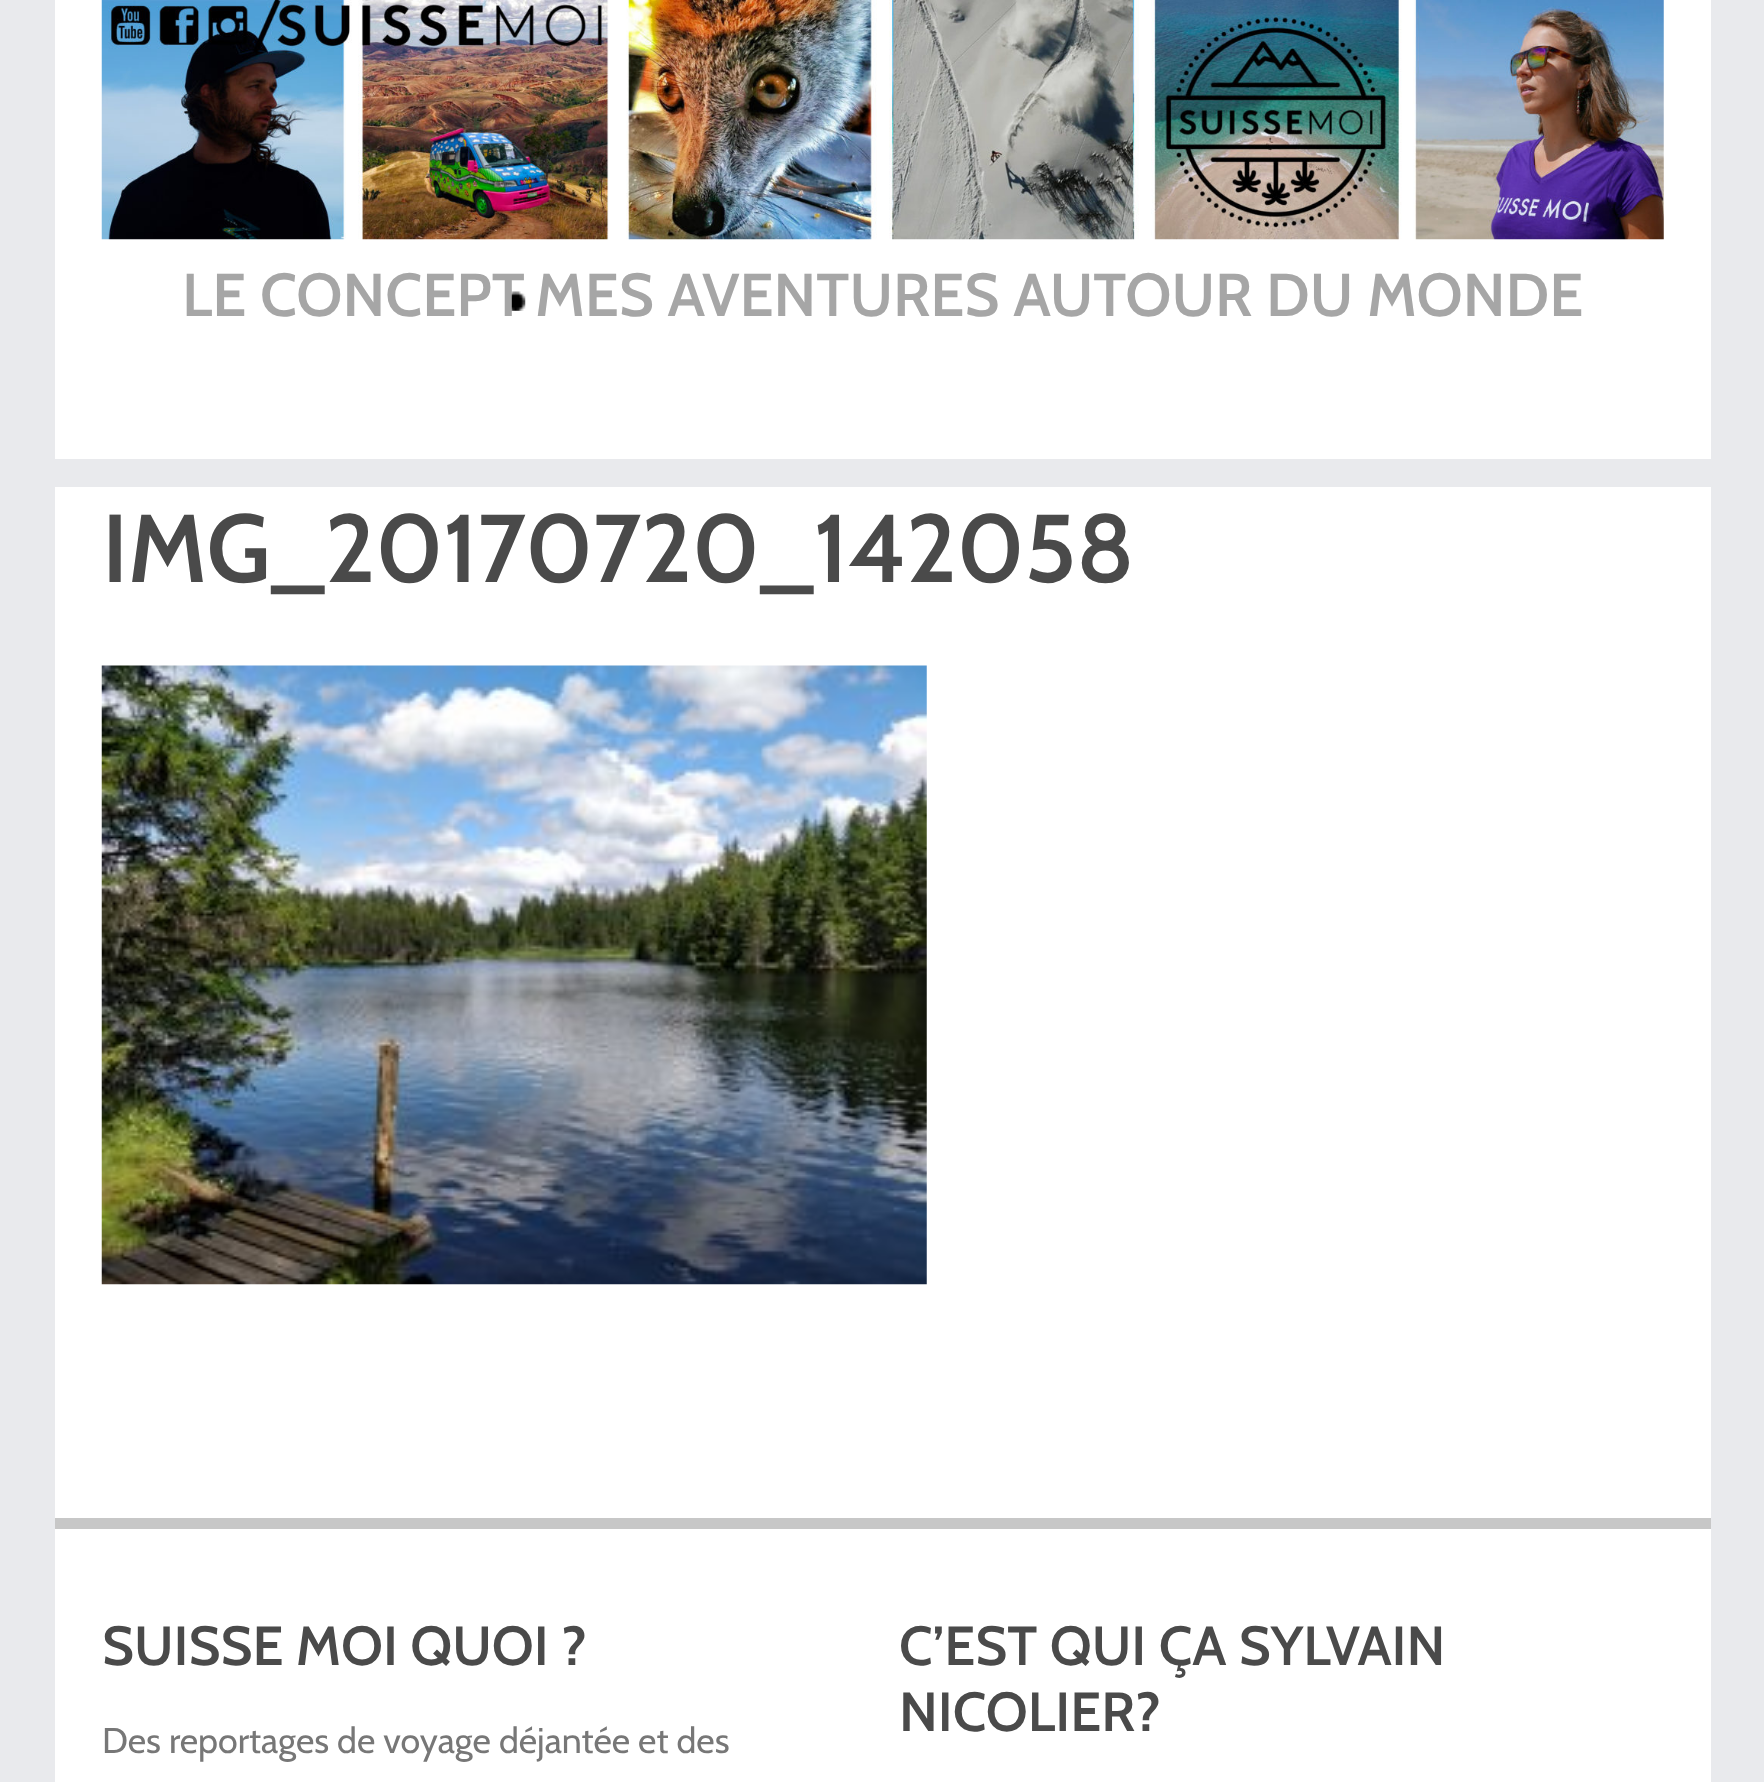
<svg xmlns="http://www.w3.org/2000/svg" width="1764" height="1782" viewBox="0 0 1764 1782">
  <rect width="100%" height="100%" fill="#e9eaed"/>
  <path d="M55 0h1656v459H55z" fill="#fff"/>
  <image x="101" y="0" width="1563" height="240" href="img/1.png"/>
  <image x="506" y="291" width="20" height="20" href="img/2.png"/>
  <path d="M55 487h1656v1031H55z" fill="#fff"/>
  <image x="101" y="665" width="826" height="620" href="img/3.png"/>
  <path d="M55 1529h1656v253H55z" fill="#fff"/>
  <path d="M55 1518h1656v11H55z" fill="#c7c7c7"/>
  <g font-family="Cabin" font-size="60.5" font-weight="600" fill="#a6a6a6">
    <text x="182" y="316">LE CONCEPT</text>
    <text x="535" y="316">MES AVENTURES AUTOUR DU MONDE</text>
  </g>
  <text x="102" y="582" font-family="Cabin" font-size="96.25" font-weight="600" fill="#4a4a4a">IMG_20170720_142058</text>
  <text x="102" y="1665" font-family="Cabin" font-size="55" font-weight="600" fill="#4a4a4a">SUISSE MOI QUOI ?</text>
  <text x="102" y="1753" font-family="Cabin" font-size="35.75" fill="#777">Des reportages de voyage déjantée et des</text>
  <g font-family="Cabin" font-size="55" font-weight="600" fill="#4a4a4a">
    <text x="899" y="1665">C’EST QUI ÇA SYLVAIN</text>
    <text x="899" y="1731">NICOLIER?</text>
  </g>
</svg>
